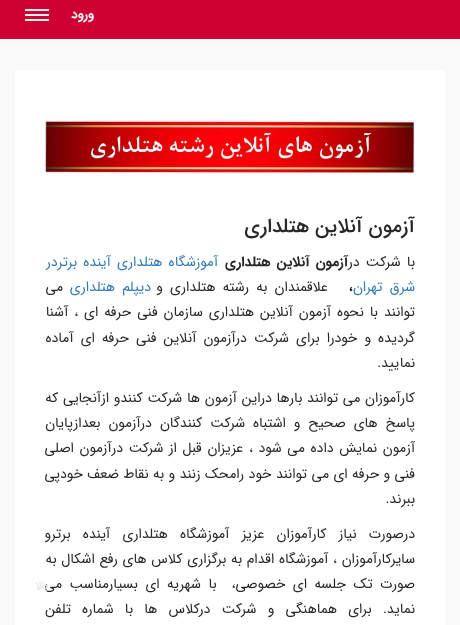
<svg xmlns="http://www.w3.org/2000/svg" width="460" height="625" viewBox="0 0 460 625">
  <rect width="100%" height="100%" fill="#f9f9f9"/>
  <path d="M0 0h460v39H0z" fill="#ce0033"/>
  <path d="M25 14h24v2H25z" fill="#efefef"/>
  <path d="M25 9h24v2H25z" fill="#efefef"/>
  <path d="M25 19h24v2H25z" fill="#efefef"/>
  <rect x="15" y="70" width="430" height="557" rx="2" fill="#fff"/>
  <image x="45" y="120" width="370" height="54" href="img/1.png"/>
  <text x="94" y="18" font-family="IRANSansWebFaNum" font-size="13" font-weight="bold" direction="rtl" fill="#efefef">ورود</text>
  <text x="415" y="232" font-family="IRANSansWebFaNum" font-size="20" font-weight="500" direction="rtl" fill="#282828">آزمون آنلاین هتلداری</text>
  <text x="415" y="266" word-spacing="2" font-family="IRANSansWebFaNum" font-size="14" direction="rtl" fill="#282828">با شرکت در</text>
  <text x="348" y="266" word-spacing="2" font-family="IRANSansWebFaNum" font-size="14" font-weight="bold" direction="rtl" fill="#282828">آزمون آنلاین هتلداری</text>
  <g font-family="IRANSansWebFaNum" font-size="14" direction="rtl" fill="#337ab7">
    <text x="218" y="266" word-spacing="2">آموزشگاه هتلداری آینده برتردر</text>
    <text x="415" y="291" word-spacing="3">شرق تهران</text>
  </g>
  <text x="349" y="291" font-family="IRANSansWebFaNum" font-size="14" font-weight="bold" fill="#282828">،</text>
  <text x="328" y="291" word-spacing="3" font-family="IRANSansWebFaNum" font-size="14" direction="rtl" fill="#282828">علاقمندان به رشته هتلداری و</text>
  <text x="151" y="291" word-spacing="3" font-family="IRANSansWebFaNum" font-size="14" direction="rtl" fill="#337ab7">دیپلم هتلداری</text>
  <g font-family="IRANSansWebFaNum" font-size="14" direction="rtl" fill="#282828">
    <text x="63" y="291">می</text>
    <text x="415" y="316" word-spacing="1.75">توانند با نحوه آزمون آنلاین هتلداری سازمان فنی حرفه ای ، آشنا</text>
    <text x="415" y="342" word-spacing="2.9">گردیده و خودرا برای شرکت درآزمون آنلاین فنی حرفه ای آماده</text>
    <text x="415" y="367">نمایید.</text>
    <text x="415" y="402" word-spacing="0.5">کارآموزان می توانند بارها دراین آزمون ها شرکت کنندو ازآنجایی که</text>
    <text x="415" y="427" word-spacing="3.75">پاسخ های صحیح و اشتباه شرکت کنندگان درآزمون بعدازپایان</text>
    <text x="415" y="452" word-spacing="1.4">آزمون نمایش داده می شود ، عزیزان قبل از شرکت درآزمون اصلی</text>
    <text x="415" y="478" word-spacing="0.25">فنی و حرفه ای می توانند خود رامحک زنند و به نقاط ضعف خودپی</text>
    <text x="415" y="503">ببرند.</text>
    <text x="415" y="538" word-spacing="8">درصورت نیاز کارآموزان عزیز آموزشگاه هتلداری آینده برترو</text>
    <text x="415" y="563" word-spacing="0.5">سایرکارآموزان ، آموزشگاه اقدام به برگزاری کلاس های رفع اشکال به</text>
    <text x="415" y="588" word-spacing="3.25" xml:space="preserve">صورت تک جلسه ای خصوصی،  با شهریه ای بسیارمناسب می</text>
    <text x="415" y="613" word-spacing="7">نماید. برای هماهنگی و شرکت درکلاس ها با شماره تلفن</text>
  </g>
  <text x="48" y="589" font-family="IRANSansWebFaNum" font-size="11" font-weight="bold" direction="rtl" fill="#e8e8e8">بالا</text>
</svg>
